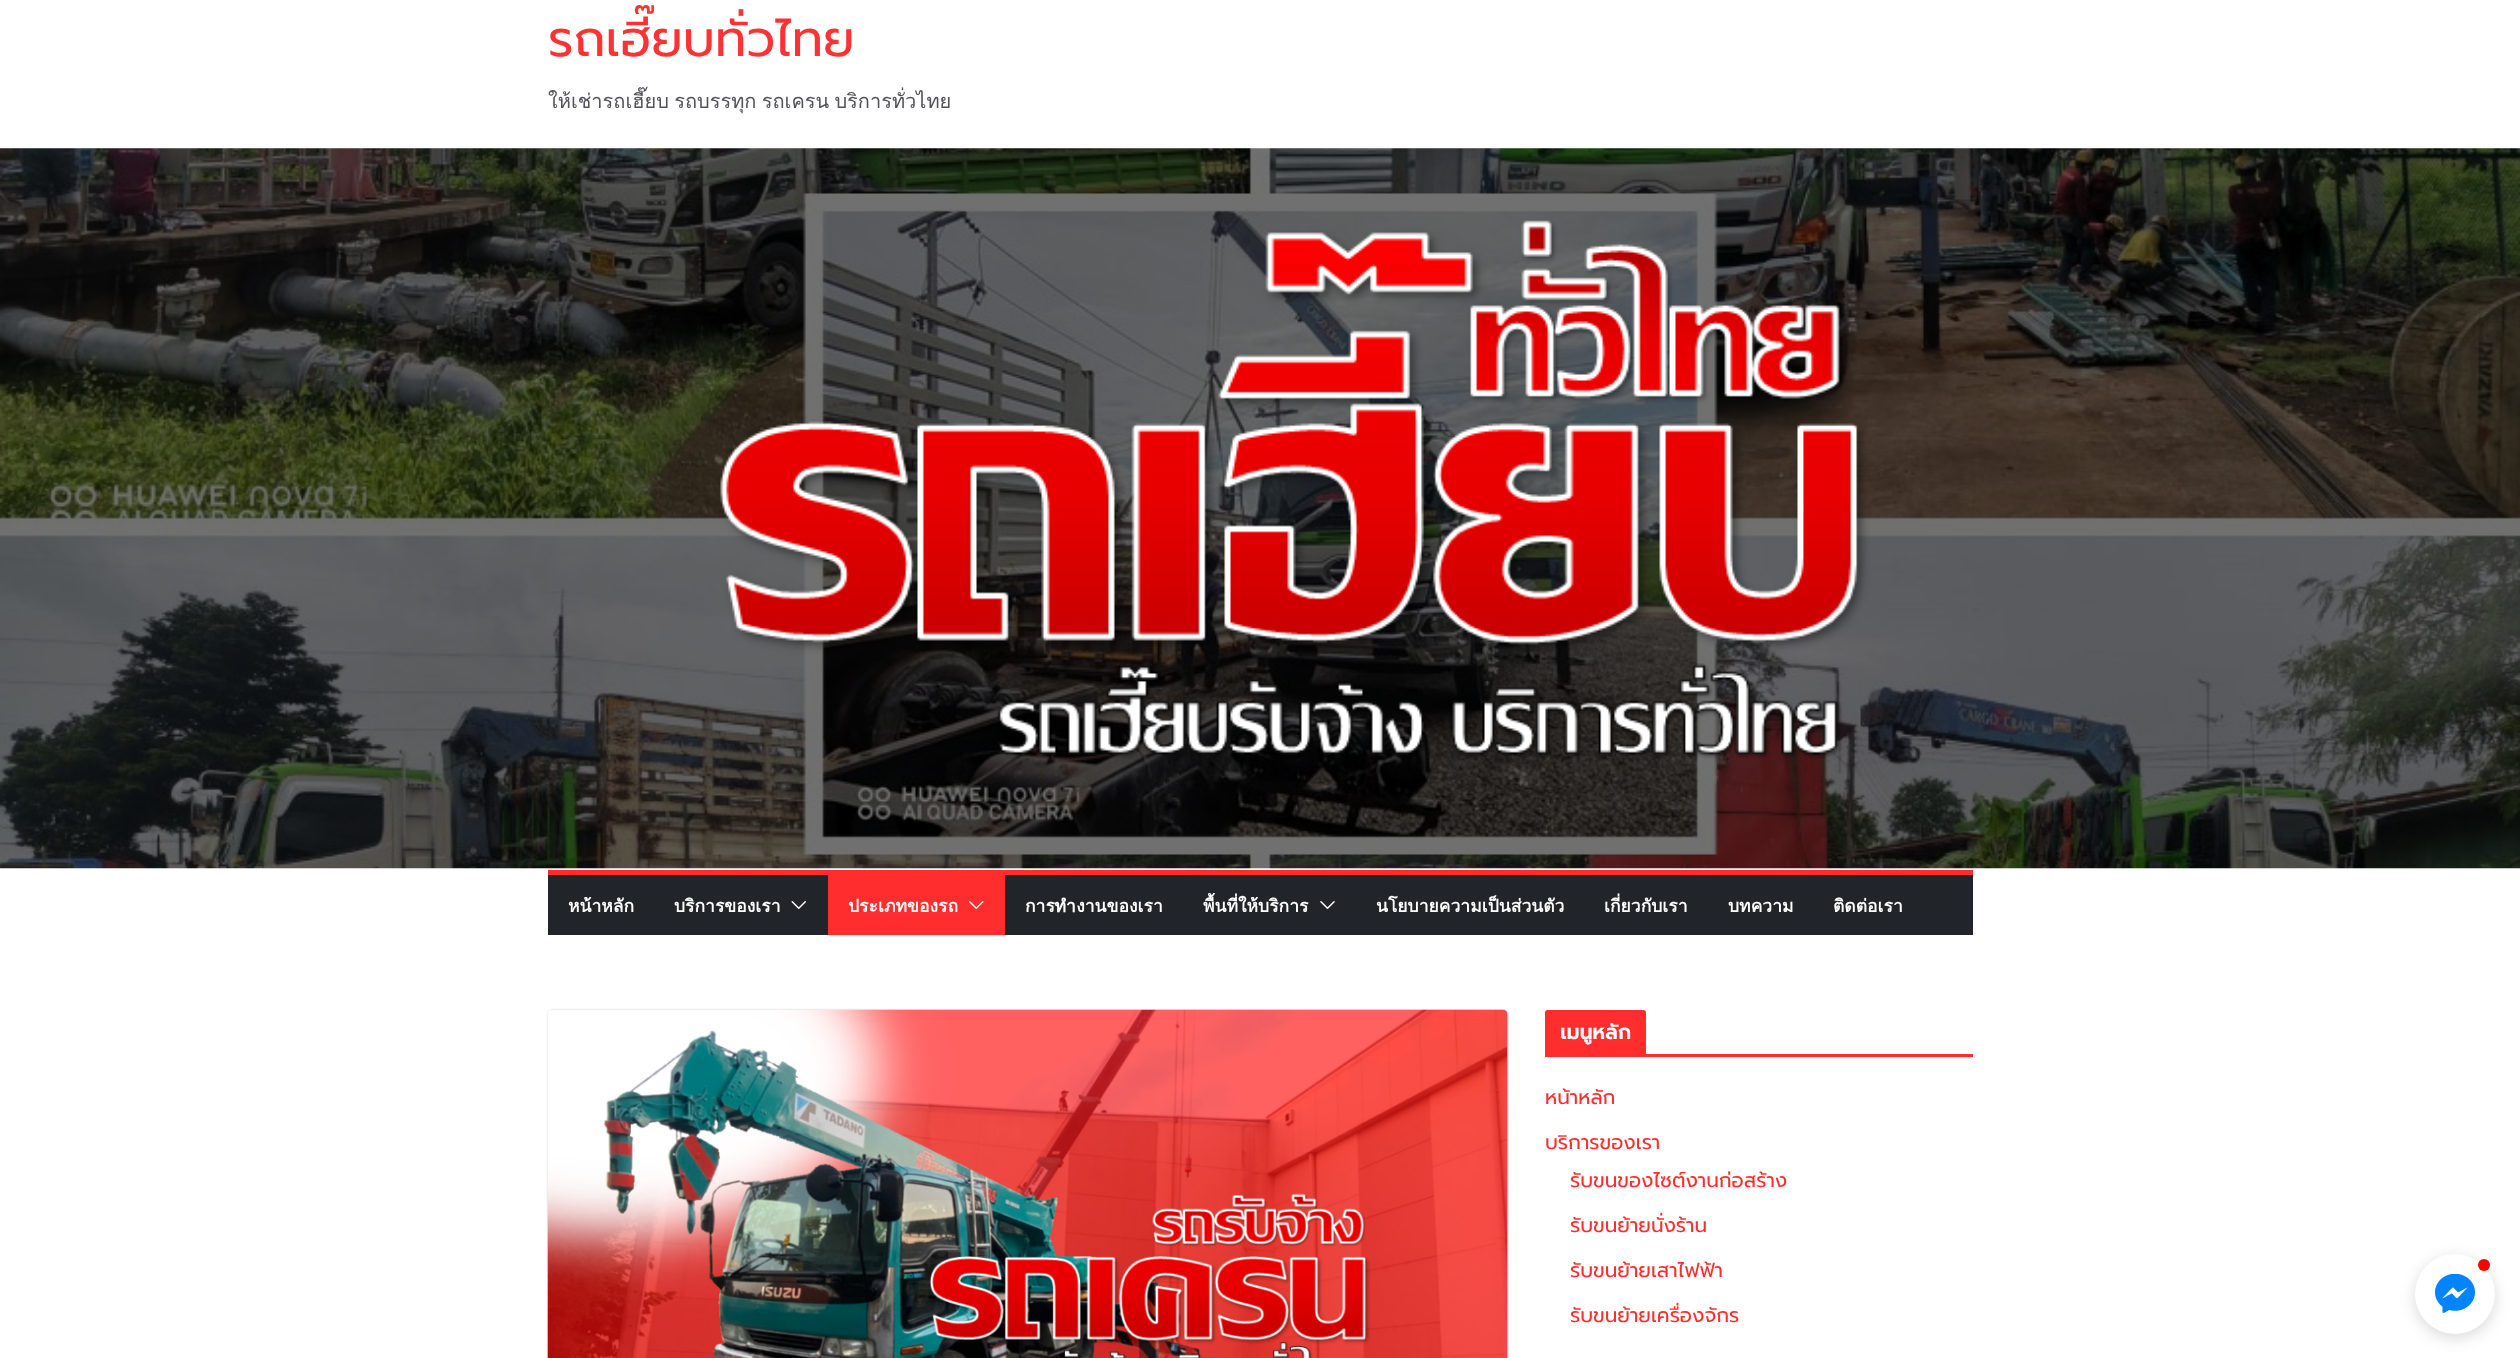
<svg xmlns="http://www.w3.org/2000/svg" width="2520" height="1358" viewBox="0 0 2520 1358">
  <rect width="100%" height="100%" fill="#fff"/>
  <image x="0" y="148" width="2520" height="721" href="img/1.png"/>
  <path d="M548 875h1425v60H548z" fill="#212529"/>
  <path d="M548 870h1425v5H548z" fill="#ff2d2d"/>
  <image x="791" y="901" width="15" height="8" href="img/2.png"/>
  <path d="M828 875h177v60H828z" fill="#ff2d2d"/>
  <image x="969" y="901" width="15" height="8" href="img/3.png"/>
  <image x="1320" y="901" width="15" height="8" href="img/4.png"/>
  <rect x="548" y="1010" width="960" height="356" rx="5" fill="#0000003d" filter="blur(1px)"/>
  <image x="547" y="1009" width="961" height="349" href="img/5.png"/>
  <path d="M1545 1054h428v3H1545z" fill="#ff2d2d"/>
  <path d="M1547.5 1010H1643.5C1645 1010 1646 1011 1646 1012.5V1054H1545V1012.5C1545 1011 1546 1010 1547.5 1010Z" fill="#ff2d2d"/>
  <rect x="2415" y="1258" width="80" height="80" rx="40" fill="#00000026" filter="blur(7.5px)"/>
  <circle cx="2455" cy="1294" r="40" fill="#fff"/>
  <circle cx="2484" cy="1265" r="6" fill="#f00"/>
  <image x="2435" y="1274" width="40" height="39" href="img/6.png"/>
  <text x="548" y="56" font-family="Prompt" font-size="50" fill="#ff3233">รถเฮี๊ยบทั่วไทย</text>
  <text x="548" y="108" word-spacing="-1.5" font-family="Loma" font-size="20" fill="#52525b">ให้เช่ารถเฮี๊ยบ รถบรรทุก รถเครน บริการทั่วไทย</text>
  <g font-family="Loma" font-size="17.5" font-weight="bold" fill="#fff">
    <text x="568" y="912">หน้าหลัก</text>
    <text x="674" y="912">บริการของเรา</text>
    <text x="848" y="912">ประเภทของรถ</text>
    <text x="1025" y="912">การทำงานของเรา</text>
    <text x="1203" y="912">พื้นที่ให้บริการ</text>
    <text x="1376" y="912">นโยบายความเป็นส่วนตัว</text>
    <text x="1604" y="912">เกี่ยวกับเรา</text>
    <text x="1728" y="912">บทความ</text>
    <text x="1833" y="912">ติดต่อเรา</text>
  </g>
  <text x="1560" y="1039" font-family="Prompt" font-size="20" font-weight="bold" letter-spacing="0.25" fill="#fff">เมนูหลัก</text>
  <g font-family="Prompt" font-size="20" fill="#ff2d2d">
    <text x="1545" y="1104">หน้าหลัก</text>
    <text x="1545" y="1149">บริการของเรา</text>
    <text x="1570" y="1187">รับขนของไซต์งานก่อสร้าง</text>
    <text x="1570" y="1232">รับขนย้ายนั่งร้าน</text>
    <text x="1570" y="1277">รับขนย้ายเสาไฟฟ้า</text>
    <text x="1570" y="1322">รับขนย้ายเครื่องจักร</text>
  </g>
</svg>
